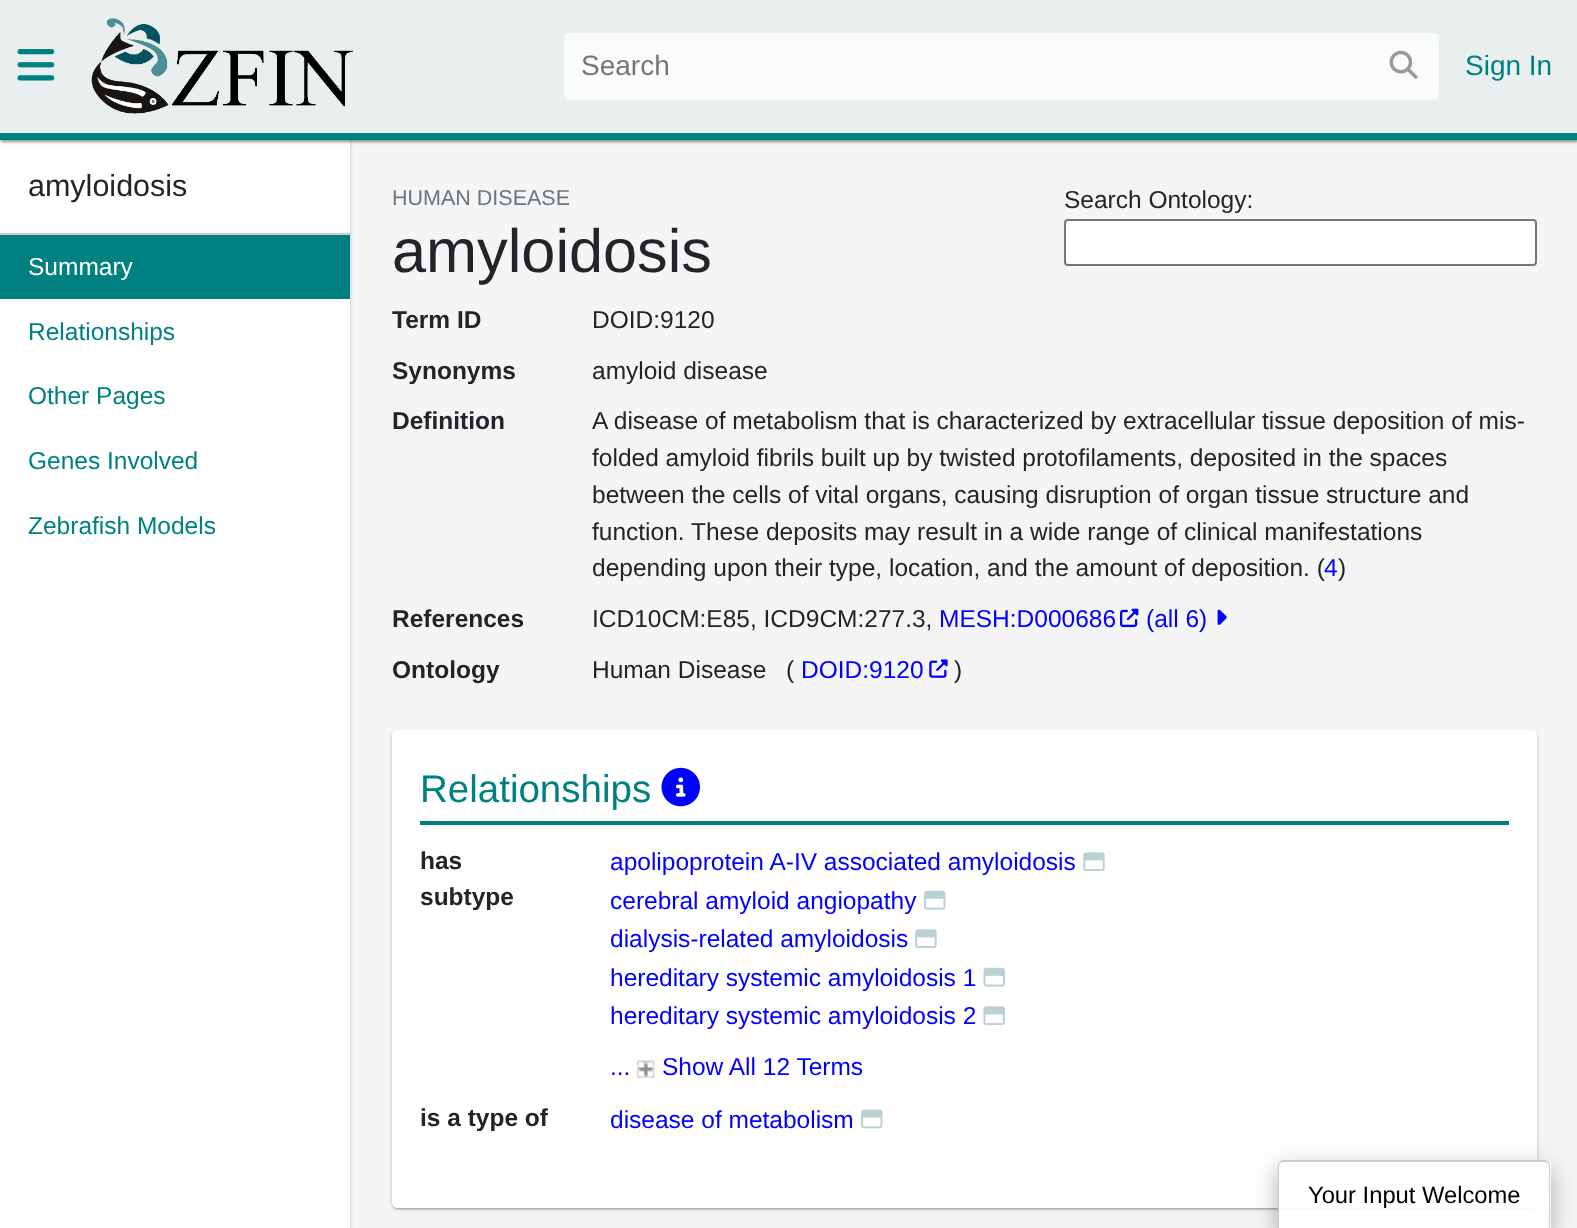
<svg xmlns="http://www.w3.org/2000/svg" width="1577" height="1228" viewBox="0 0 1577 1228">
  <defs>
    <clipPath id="clip1"><path d="M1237 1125H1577V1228H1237ZM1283 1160H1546C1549 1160 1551 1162 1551 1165V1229H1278V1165C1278 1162 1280 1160 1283 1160Z" clip-rule="evenodd"/></clipPath>
    <clipPath id="clip2"><path d="M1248 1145H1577V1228H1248ZM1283 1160H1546C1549 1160 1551 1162 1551 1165V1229H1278V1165C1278 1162 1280 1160 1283 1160Z" clip-rule="evenodd"/></clipPath>
  </defs>
  <rect width="100%" height="100%" fill="#f5f5f5"/>
  <path d="M0 142h350v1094H0z" fill="#0000001f" filter="blur(2.5px)"/>
  <path d="M0 142h350v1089H0z" fill="#00000024" filter="blur(1px)"/>
  <path d="M0 140h350v1088H0z" fill="#fff"/>
  <path d="M0 2h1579v140H0z" fill="#0000001f" filter="blur(2.5px)"/>
  <path d="M0 2h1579v140H0z" fill="#00000024" filter="blur(1px)"/>
  <path d="M2 5h1575v137H2z" fill="#00000033" filter="blur(1px)"/>
  <path d="M0 0h1577v133H0z" fill="#e9efef"/>
  <path d="M0 133h1577v7H0z" fill="#008080"/>
  <image x="17" y="49" width="38" height="32" href="img/1.png"/>
  <image x="91" y="18" width="262" height="96" href="img/2.png"/>
  <rect x="564" y="33" width="875" height="67" rx="5" fill="#fafbfb"/>
  <image x="1389" y="50" width="29" height="29" href="img/3.png"/>
  <path d="M0 233h350v2H0z" fill="#ccc"/>
  <path d="M0 235h350v64H0z" fill="#008080"/>
  <image x="1120" y="608" width="19" height="20" href="img/4.png"/>
  <image x="1217" y="609" width="10" height="16" href="img/5.png"/>
  <image x="929" y="659" width="19" height="19" href="img/6.png"/>
  <rect x="1065" y="220" width="471" height="45" rx="3" fill="#fff" stroke="#767676" stroke-width="2"/>
  <rect x="392" y="732" width="1145" height="477" rx="5" fill="#0000001f" filter="blur(2.5px)"/>
  <rect x="392" y="732" width="1145" height="477" rx="5" fill="#00000024" filter="blur(1px)"/>
  <rect x="394" y="735" width="1141" height="474" rx="4" fill="#00000033" filter="blur(1px)"/>
  <rect x="392" y="730" width="1145" height="478" rx="5" fill="#fff"/>
  <path d="M420 821h1089v4H420z" fill="#008080"/>
  <image x="661" y="767" width="39" height="40" href="img/7.png"/>
  <image x="1083" y="852" width="22" height="19" href="img/8.png"/>
  <image x="924" y="890" width="22" height="20" href="img/9.png"/>
  <image x="915" y="929" width="22" height="19" href="img/8.png"/>
  <image x="983" y="967" width="22" height="20" href="img/10.png"/>
  <image x="983" y="1006" width="22" height="19" href="img/11.png"/>
  <image x="637" y="1060" width="18" height="18" href="img/12.png"/>
  <image x="861" y="1109" width="22" height="20" href="img/13.png"/>
  <g clip-path="url(#clip1)">
    <rect x="1274" y="1162" width="280" height="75" rx="9" fill="#0000001f" filter="blur(12px)"/>
  </g>
  <g clip-path="url(#clip2)">
    <rect x="1276" y="1173" width="276" height="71" rx="7" fill="#00000024" filter="blur(9px)"/>
  </g>
  <path d="M1283 1160H1546C1549 1160 1551 1162 1551 1165V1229H1278V1165C1278 1162 1280 1160 1283 1160Z" fill="#ffffffe6"/>
  <path d="M1283 1160H1545C1548 1160 1550 1163 1550 1166V1228H1278V1166C1278 1163 1280 1160 1283 1160ZM1283 1162H1545C1547 1162 1549 1164 1549 1166V1228H1279V1166C1279 1164 1281 1162 1283 1162Z" fill="#ccc" fill-rule="evenodd"/>
  <text x="581" y="75" font-family="Liberation Sans" font-size="28" fill="#757575">Search</text>
  <text x="1465" y="75" font-family="Liberation Sans" font-size="28" fill="#008080">Sign In</text>
  <text x="28" y="196" font-family="Liberation Sans" font-size="30.5" fill="#212529">amyloidosis</text>
  <text x="28" y="275" font-family="Liberation Sans" font-size="24.5" fill="#fff">Summary</text>
  <g font-family="Liberation Sans" font-size="24.5" fill="#008080">
    <text x="28" y="340">Relationships</text>
    <text x="28" y="404">Other Pages</text>
    <text x="28" y="469">Genes Involved</text>
    <text x="28" y="534">Zebrafish Models</text>
  </g>
  <text x="392" y="205" font-family="Liberation Sans" font-size="21.5" fill="#6c757d">HUMAN DISEASE</text>
  <text x="392" y="272" font-family="Liberation Sans" font-size="61.25" fill="#212529">amyloidosis</text>
  <text x="392" y="328" font-family="Liberation Sans" font-size="24.5" font-weight="bold" fill="#212529">Term ID</text>
  <text x="592" y="328" font-family="Liberation Sans" font-size="24.5" fill="#212529">DOID:9120</text>
  <text x="392" y="379" font-family="Liberation Sans" font-size="24.5" font-weight="bold" fill="#212529">Synonyms</text>
  <text x="592" y="379" font-family="Liberation Sans" font-size="24.5" fill="#212529">amyloid disease</text>
  <text x="392" y="429" font-family="Liberation Sans" font-size="24.5" font-weight="bold" fill="#212529">Definition</text>
  <g font-family="Liberation Sans" font-size="24.5" fill="#212529">
    <text x="592" y="429">A disease of metabolism that is characterized by extracellular tissue deposition of mis-</text>
    <text x="592" y="466">folded amyloid fibrils built up by twisted protofilaments, deposited in the spaces</text>
    <text x="592" y="503">between the cells of vital organs, causing disruption of organ tissue structure and</text>
    <text x="592" y="540">function. These deposits may result in a wide range of clinical manifestations</text>
    <text x="592" y="576">depending upon their type, location, and the amount of deposition. (</text>
  </g>
  <text x="1324" y="576" font-family="Liberation Sans" font-size="24.5" fill="#00f">4</text>
  <text x="1338" y="576" font-family="Liberation Sans" font-size="24.5" fill="#212529">)</text>
  <text x="392" y="627" font-family="Liberation Sans" font-size="24.5" font-weight="bold" fill="#212529">References</text>
  <text x="592" y="627" font-family="Liberation Sans" font-size="24.5" fill="#212529">ICD10CM:E85, ICD9CM:277.3,</text>
  <g font-family="Liberation Sans" font-size="24.5" fill="#00f">
    <text x="939" y="627">MESH:D000686</text>
    <text x="1146" y="627">(all 6)</text>
  </g>
  <text x="392" y="678" font-family="Liberation Sans" font-size="24.5" font-weight="bold" fill="#212529">Ontology</text>
  <g font-family="Liberation Sans" font-size="24.5" fill="#212529">
    <text x="592" y="678">Human Disease</text>
    <text x="786" y="678">(</text>
  </g>
  <text x="801" y="678" font-family="Liberation Sans" font-size="24.5" fill="#00f">DOID:9120</text>
  <g font-family="Liberation Sans" font-size="24.5" fill="#212529">
    <text x="954" y="678">)</text>
    <text x="1064" y="208">Search Ontology:</text>
  </g>
  <text x="420" y="802" font-family="Liberation Sans" font-size="38.5" fill="#008080">Relationships</text>
  <g font-family="Liberation Sans" font-size="24.5" font-weight="bold" fill="#212529">
    <text x="420" y="869">has</text>
    <text x="420" y="905">subtype</text>
  </g>
  <g font-family="Liberation Sans" font-size="24.5" fill="#00f">
    <text x="610" y="870">apolipoprotein A-IV associated amyloidosis</text>
    <text x="610" y="909">cerebral amyloid angiopathy</text>
    <text x="610" y="947">dialysis-related amyloidosis</text>
    <text x="610" y="986">hereditary systemic amyloidosis 1</text>
    <text x="610" y="1024">hereditary systemic amyloidosis 2</text>
    <text x="610" y="1075">...</text>
    <text x="662" y="1075">Show All 12 Terms</text>
  </g>
  <text x="420" y="1126" font-family="Liberation Sans" font-size="24.5" font-weight="bold" fill="#212529">is a type of</text>
  <text x="610" y="1128" font-family="Liberation Sans" font-size="24.5" fill="#00f">disease of metabolism</text>
  <text x="1308" y="1203" font-family="Liberation Sans" font-size="23.75" fill="#000">Your Input Welcome</text>
</svg>
